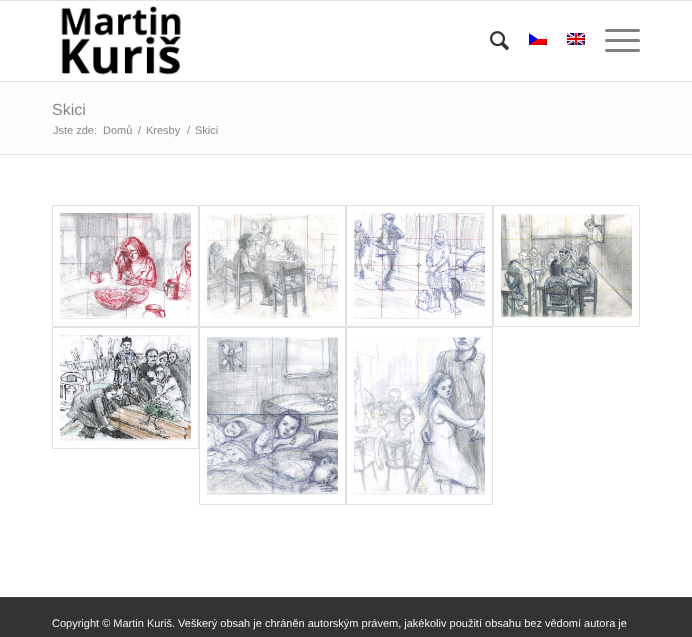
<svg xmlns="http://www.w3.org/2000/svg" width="692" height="637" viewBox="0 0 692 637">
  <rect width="100%" height="100%" fill="#fff"/>
  <path d="M0 0h692v1H0z" fill="#e1e1e1"/>
  <path d="M0 81h692v1H0z" fill="#e1e1e1"/>
  <image x="61" y="6" width="120" height="69" href="img/1.png"/>
  <image x="490" y="31" width="19" height="20" href="img/2.png"/>
  <image x="529" y="33" width="18" height="12" href="img/3.png"/>
  <image x="567" y="33" width="18" height="12" href="img/4.png"/>
  <rect x="605" y="39" width="35" height="3" rx="1.5" fill="#808080"/>
  <rect x="605" y="29" width="35" height="3" rx="1.5" fill="#808080"/>
  <rect x="605" y="49" width="35" height="3" rx="1.5" fill="#808080"/>
  <path d="M0 82h692v72H0z" fill="#fcfcfc"/>
  <path d="M0 154h692v1H0z" fill="#e1e1e1"/>
  <path d="M52.5 205.5h146v121H52.5z" fill="none" stroke="#e1e1e1"/>
  <image x="60" y="213" width="131" height="106" href="img/5.png"/>
  <path d="M199.5 205.5h146v121H199.5z" fill="none" stroke="#e1e1e1"/>
  <image x="207" y="213" width="131" height="106" href="img/6.png"/>
  <path d="M346.5 205.5h146v121H346.5z" fill="none" stroke="#e1e1e1"/>
  <image x="354" y="213" width="131" height="106" href="img/7.png"/>
  <path d="M493.5 205.5h146v121H493.5z" fill="none" stroke="#e1e1e1"/>
  <image x="501" y="213" width="131" height="105" href="img/8.png"/>
  <path d="M52.5 327.5h146v121H52.5z" fill="none" stroke="#e1e1e1"/>
  <image x="60" y="335" width="131" height="106" href="img/9.png"/>
  <path d="M199.5 327.5h146v177H199.5z" fill="none" stroke="#e1e1e1"/>
  <image x="207" y="337" width="131" height="158" href="img/10.png"/>
  <path d="M346.5 327.5h146v177H346.5z" fill="none" stroke="#e1e1e1"/>
  <image x="354" y="335" width="131" height="160" href="img/11.png"/>
  <path d="M0 598h692v39H0z" fill="#333"/>
  <path d="M0 597h692v1H0z" fill="#444"/>
  <text x="52" y="115" font-family="Liberation Sans" font-size="16" fill="#888">Skici</text>
  <g font-family="Liberation Sans" font-size="11" fill="#888">
    <text x="53" y="134">Jste zde:</text>
    <text x="103" y="134">Domů</text>
    <text x="138" y="134">/</text>
    <text x="146" y="134">Kresby</text>
    <text x="187" y="134">/</text>
    <text x="195" y="134">Skici</text>
  </g>
  <text x="52" y="627" font-family="Liberation Sans" font-size="11" fill="#eee">Copyright © Martin Kuriš. Veškerý obsah je chráněn autorským právem, jakékoliv použití obsahu bez vědomí autora je</text>
</svg>
